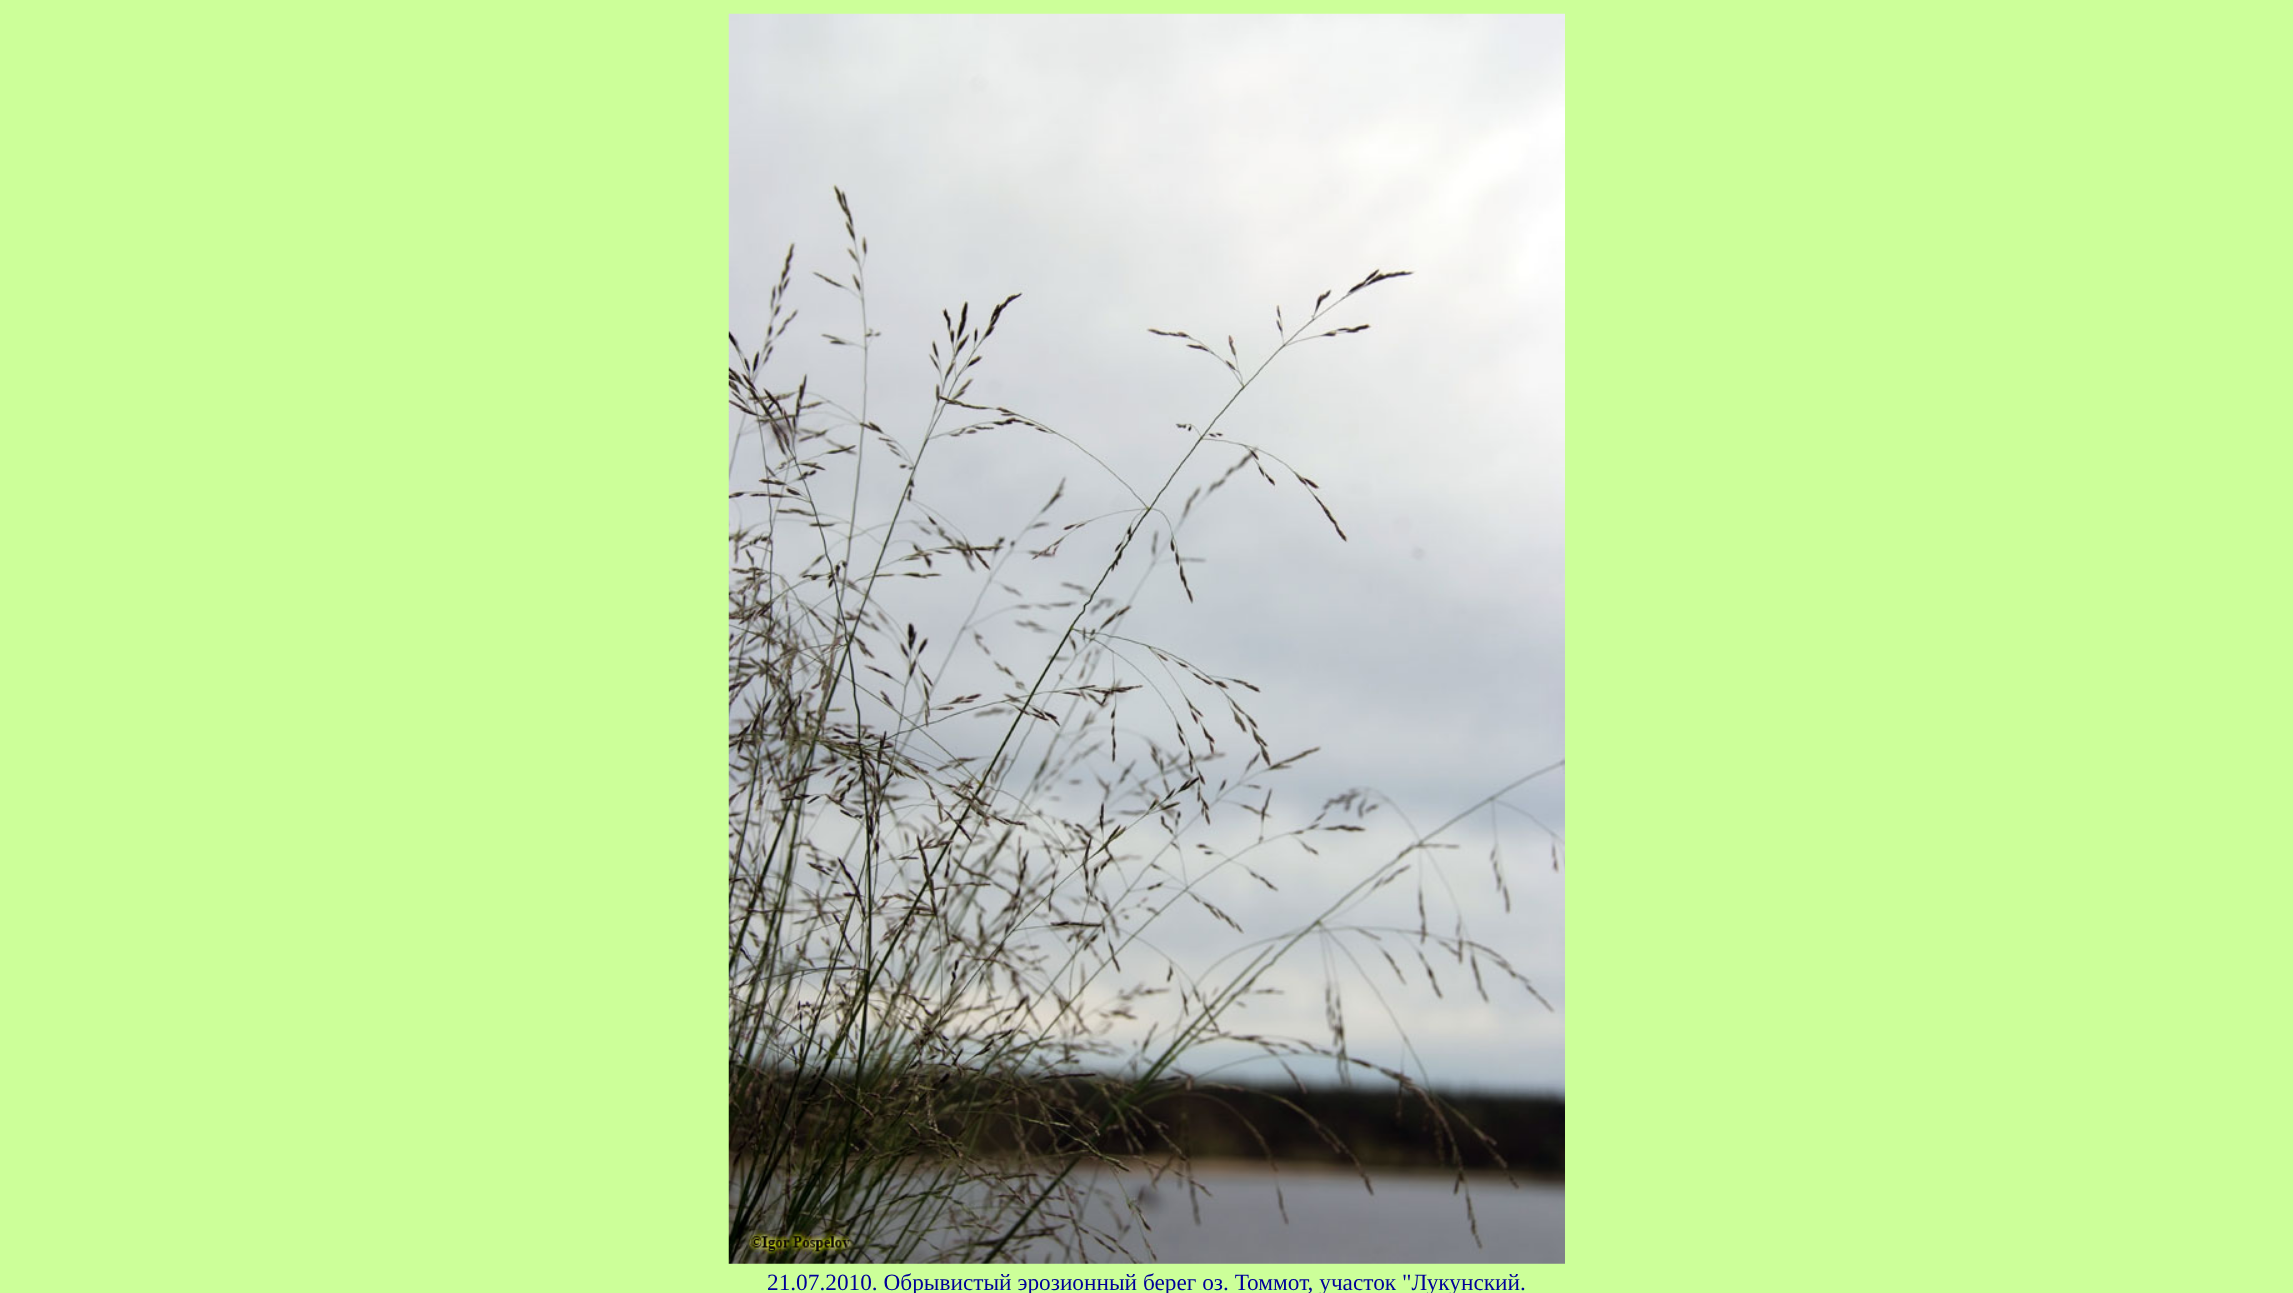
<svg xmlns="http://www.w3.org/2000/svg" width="2293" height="1293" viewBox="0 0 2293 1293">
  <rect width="100%" height="100%" fill="#cf9"/>
  <image x="728" y="13" width="837" height="1251" href="img/1.png"/>
  <text x="767" y="1290" font-family="Liberation Serif" font-size="23.3" fill="#009">21.07.2010. Обрывистый эрозионный берег оз. Томмот, участок "Лукунский.</text>
</svg>
